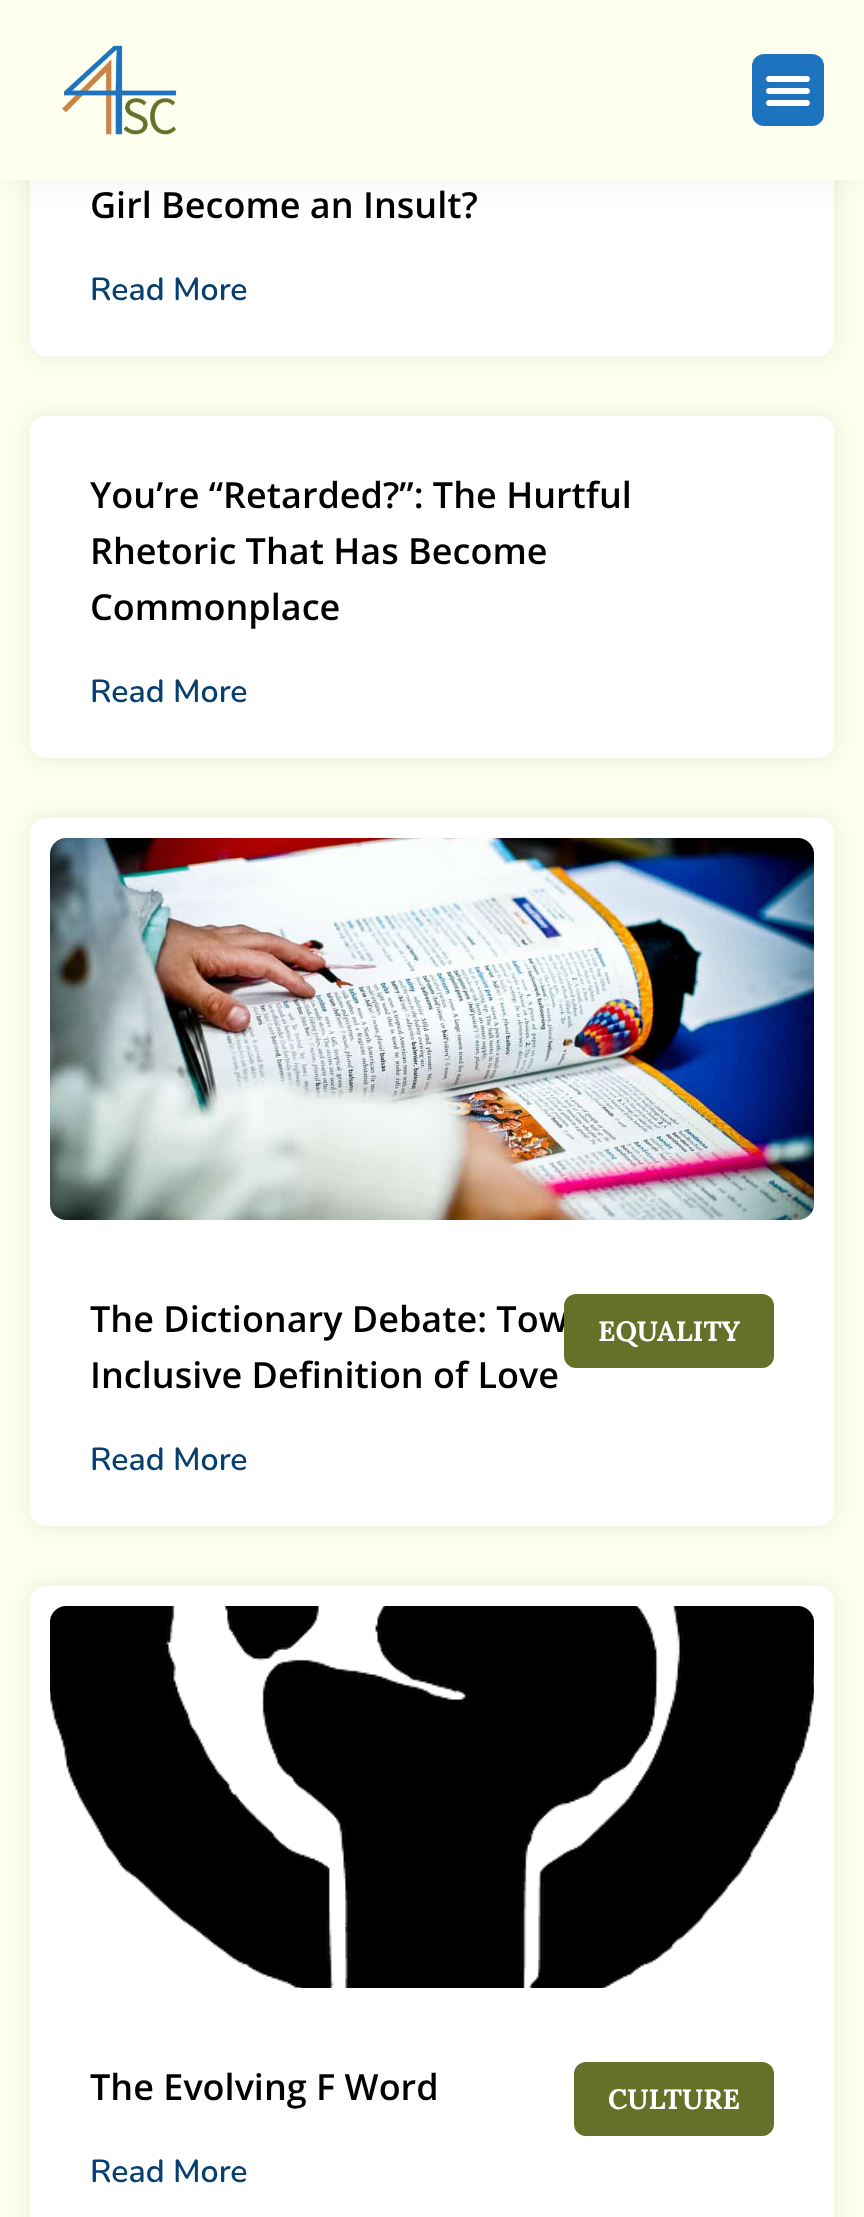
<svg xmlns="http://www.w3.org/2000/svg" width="864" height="2217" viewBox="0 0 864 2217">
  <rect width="100%" height="100%" fill="#fffff0"/>
  <rect x="24" y="64" width="816" height="298" rx="22" fill="#0000000d" filter="blur(10px)"/>
  <rect x="40" y="80" width="784" height="266" rx="6" fill="#fff" stroke="#fff" stroke-width="20"/>
  <path d="M-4 -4h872v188H-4z" fill="#0000000a" filter="blur(15px)"/>
  <path d="M0 0h864v180H0z" fill="#fffff0"/>
  <image x="62" y="45" width="115" height="90" href="img/1.png"/>
  <rect x="752" y="54" width="72" height="72" rx="12" fill="#1e73be"/>
  <image x="766" y="76" width="44" height="30" href="img/2.png"/>
  <rect x="24" y="410" width="816" height="354" rx="22" fill="#0000000d" filter="blur(10px)"/>
  <rect x="40" y="426" width="784" height="322" rx="6" fill="#fff" stroke="#fff" stroke-width="20"/>
  <rect x="24" y="812" width="816" height="720" rx="22" fill="#0000000d" filter="blur(10px)"/>
  <rect x="40" y="828" width="784" height="688" rx="6" fill="#fff" stroke="#fff" stroke-width="20"/>
  <image x="50" y="838" width="764" height="382" href="img/3.png"/>
  <rect x="24" y="1580" width="816" height="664" rx="22" fill="#0000000d" filter="blur(10px)"/>
  <rect x="40" y="1596" width="784" height="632" rx="6" fill="#fff" stroke="#fff" stroke-width="20"/>
  <image x="50" y="1606" width="764" height="382" href="img/4.png"/>
  <rect x="574" y="2062" width="200" height="74" rx="12" fill="#647129"/>
  <text x="90" y="218" font-family="Open Sans" font-size="36" font-weight="600" fill="#000">Girl Become an Insult?</text>
  <text x="90" y="300" font-family="Nunito" font-size="32" font-weight="600" fill="#073f71">Read More</text>
  <g font-family="Open Sans" font-size="36" font-weight="600" fill="#000">
    <text x="90" y="508">You’re “Retarded?”: The Hurtful</text>
    <text x="90" y="564">Rhetoric That Has Become</text>
    <text x="90" y="620">Commonplace</text>
  </g>
  <text x="90" y="702" font-family="Nunito" font-size="32" font-weight="600" fill="#073f71">Read More</text>
  <g font-family="Open Sans" font-size="36" font-weight="600" fill="#000">
    <text x="90" y="1332">The Dictionary Debate: Tow</text>
    <text x="90" y="1388">Inclusive Definition of Love</text>
  </g>
  <text x="90" y="1470" font-family="Nunito" font-size="32" font-weight="600" fill="#073f71">Read More</text>
  <rect x="564" y="1294" width="210" height="74" rx="12" fill="#647129"/>
  <text x="598" y="1341" font-family="Lora" font-size="28" font-weight="bold" fill="#fff">EQUALITY</text>
  <text x="90" y="2100" font-family="Open Sans" font-size="36" font-weight="600" fill="#000">The Evolving F Word</text>
  <text x="90" y="2182" font-family="Nunito" font-size="32" font-weight="600" fill="#073f71">Read More</text>
  <text x="608" y="2109" font-family="Lora" font-size="28" font-weight="bold" fill="#fff">CULTURE</text>
</svg>
